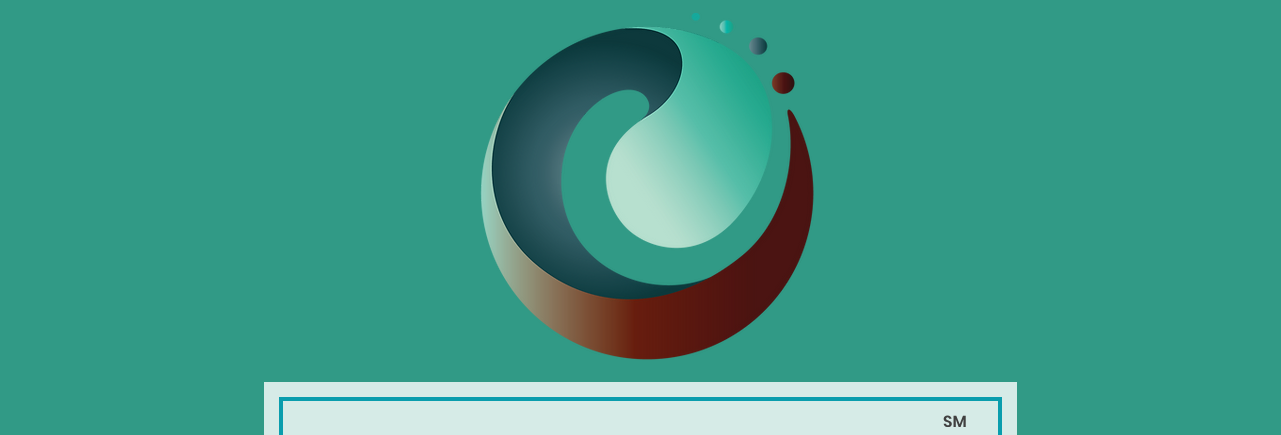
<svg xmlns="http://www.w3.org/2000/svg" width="1281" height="435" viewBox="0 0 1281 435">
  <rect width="100%" height="100%" fill="#319a86"/>
  <image x="480" y="13" width="334" height="347" href="img/1.png"/>
  <path d="M264 382h753v53H264z" fill="#d6ebe7"/>
  <path d="M281 399h719v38H281z" fill="none" stroke="#099dad" stroke-width="4"/>
  <text x="943" y="427" font-family="Poppins" font-size="16" font-weight="600" fill="#404040">SM</text>
</svg>
